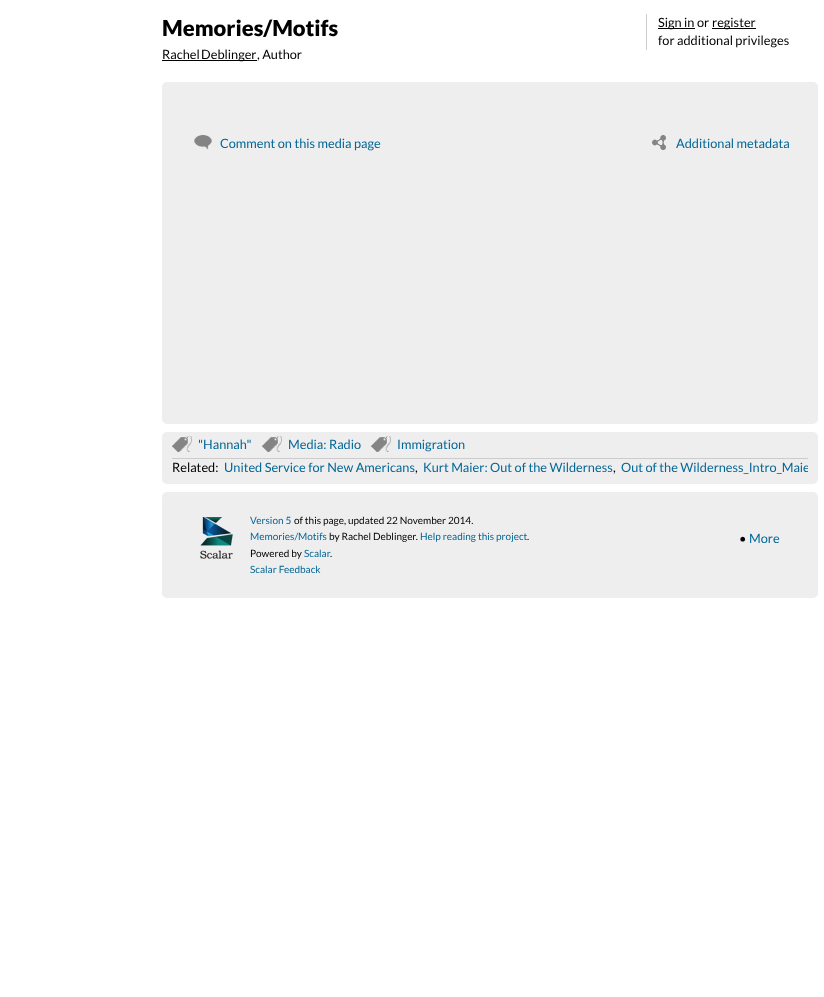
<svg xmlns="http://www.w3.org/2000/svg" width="824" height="997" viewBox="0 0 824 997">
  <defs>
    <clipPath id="clip1"><path d="M172 459h636v18H172z"/></clipPath>
  </defs>
  <rect width="100%" height="100%" fill="#fff"/>
  <path d="M646 14h1v36H646z" fill="#ccc"/>
  <path d="M658 28h37v1H658z" fill="#000"/>
  <path d="M712 28h44v1H712z" fill="#000"/>
  <path d="M162 60h95v1H162z" fill="#000"/>
  <rect x="162" y="82" width="656" height="342" rx="5" fill="#eee"/>
  <image x="194" y="135" width="18" height="15" href="img/1.png"/>
  <image x="652" y="135" width="14" height="15" href="img/2.png"/>
  <rect x="162" y="432" width="656" height="52" rx="5" fill="#eee"/>
  <image x="172" y="436" width="20" height="16" href="img/3.png"/>
  <image x="262" y="436" width="20" height="16" href="img/3.png"/>
  <image x="371" y="436" width="20" height="16" href="img/3.png"/>
  <path d="M172 458h636v1H172z" fill="#ccc"/>
  <rect x="162" y="492" width="656" height="106" rx="5" fill="#eee"/>
  <image x="200" y="517" width="33" height="42" href="img/4.png"/>
  <text x="162" y="36" font-family="Lato" font-size="22" font-weight="900" fill="#000">Memories/Motifs</text>
  <g font-family="Lato" font-size="12.75" fill="#000">
    <text x="658" y="27">Sign in or</text>
    <text x="712" y="27">register</text>
    <text x="658" y="45">for additional privileges</text>
    <text x="162" y="59" word-spacing="-1">Rachel Deblinger</text>
    <text x="257" y="59">, Author</text>
  </g>
  <g font-family="Lato" font-size="12.75" fill="#026697">
    <text x="220" y="148">Comment on this media page</text>
    <text x="676" y="148">Additional metadata</text>
    <text x="198" y="449">"Hannah"</text>
    <text x="288" y="449">Media: Radio</text>
    <text x="397" y="449">Immigration</text>
  </g>
  <text x="172" y="472" font-family="Lato" font-size="12.75" fill="#000">Related:</text>
  <text x="224" y="472" font-family="Lato" font-size="12.75" fill="#026697">United Service for New Americans</text>
  <text x="415" y="472" font-family="Lato" font-size="12.75" fill="#000">,</text>
  <text x="423" y="472" font-family="Lato" font-size="12.75" fill="#026697">Kurt Maier: Out of the Wilderness</text>
  <text x="613" y="472" font-family="Lato" font-size="12.75" fill="#000">,</text>
  <g clip-path="url(#clip1)">
    <text x="621" y="472" font-family="Lato" font-size="12.75" fill="#026697">Out of the Wilderness_Intro_Maie</text>
  </g>
  <text x="250" y="524" font-family="Lato" font-size="10" fill="#026697">Version 5</text>
  <text x="294" y="524" font-family="Lato" font-size="10" fill="#000">of this page, updated 22 November 2014.</text>
  <text x="250" y="540" font-family="Lato" font-size="10" fill="#026697">Memories/Motifs</text>
  <text x="329" y="540" font-family="Lato" font-size="10" fill="#000">by Rachel Deblinger.</text>
  <text x="420" y="540" font-family="Lato" font-size="10" fill="#026697">Help reading this project</text>
  <g font-family="Lato" font-size="10" fill="#000">
    <text x="527" y="540">.</text>
    <text x="250" y="557">Powered by</text>
  </g>
  <text x="304" y="557" font-family="Lato" font-size="10" fill="#026697">Scalar</text>
  <text x="330" y="557" font-family="Lato" font-size="10" fill="#000">.</text>
  <text x="250" y="573" font-family="Lato" font-size="10" fill="#026697">Scalar Feedback</text>
  <text x="739" y="543" font-family="Lato" font-size="12.75" fill="#000">•</text>
  <text x="749" y="543" font-family="Lato" font-size="12.75" fill="#026697">More</text>
</svg>
